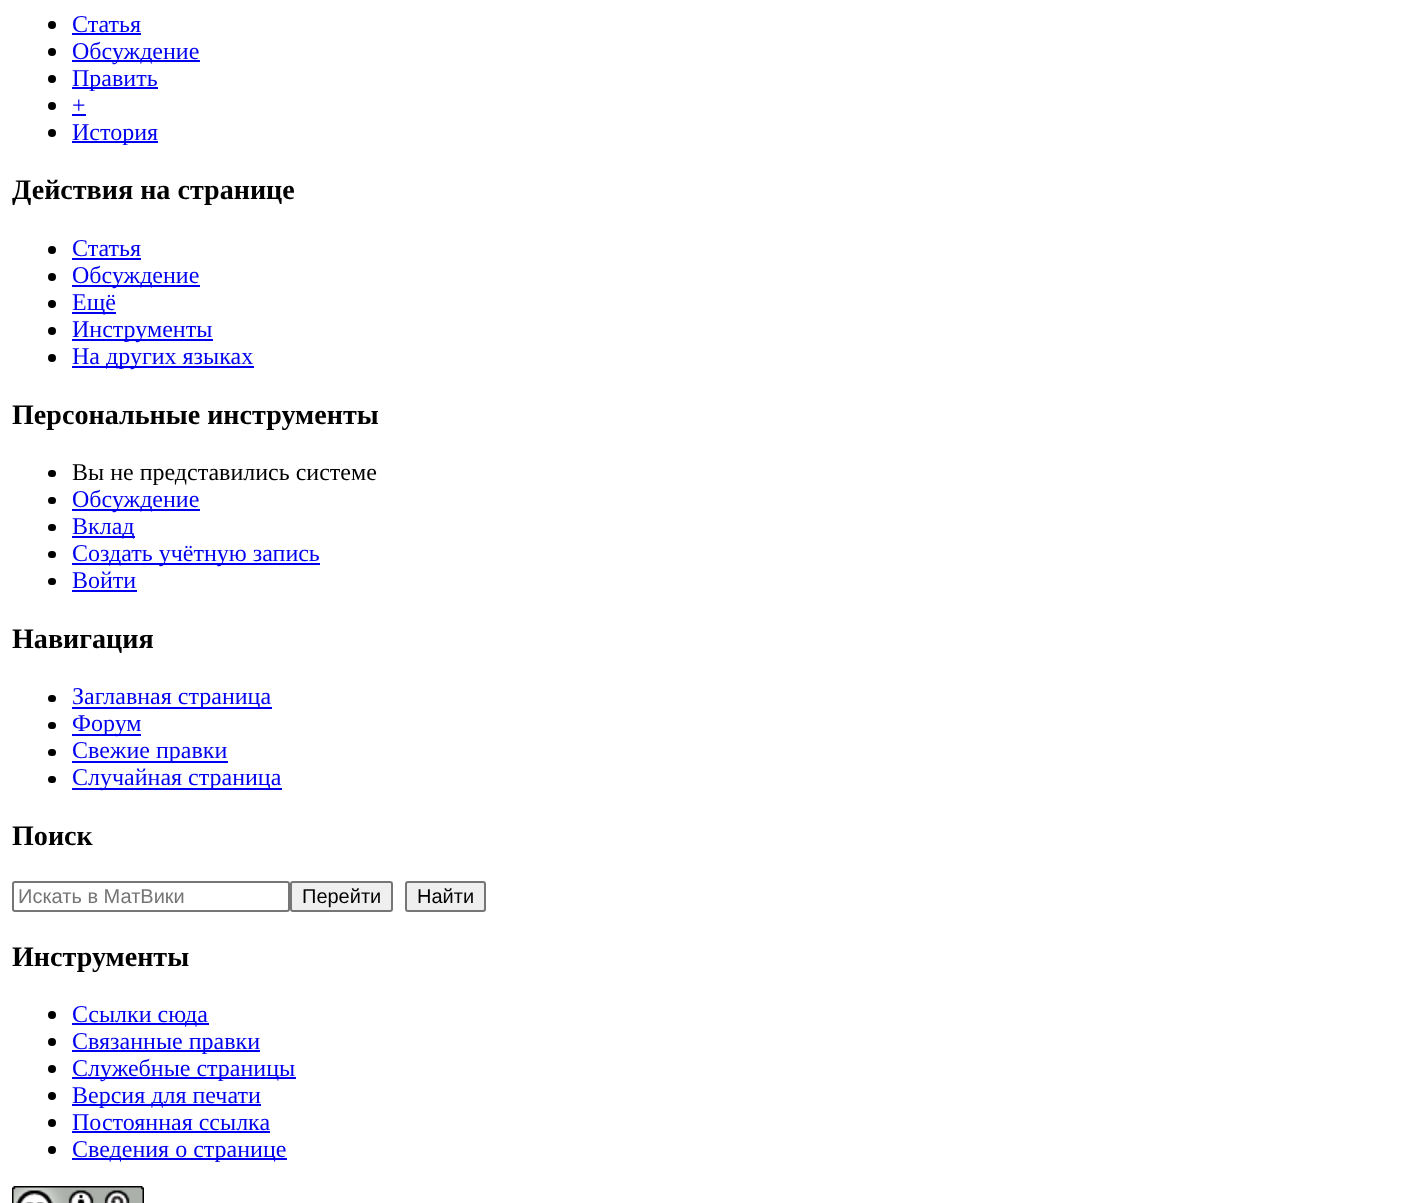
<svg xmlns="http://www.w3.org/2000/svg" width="1417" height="1203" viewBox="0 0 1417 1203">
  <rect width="100%" height="100%" fill="#fff"/>
  <circle cx="52" cy="25" r="4" fill="#000"/>
  <path d="M72 33h69v2H72z" fill="#00e"/>
  <circle cx="52" cy="52" r="4" fill="#000"/>
  <path d="M72 60h128v2H72z" fill="#00e"/>
  <circle cx="52" cy="79" r="4" fill="#000"/>
  <path d="M72 87h86v2H72z" fill="#00e"/>
  <circle cx="52" cy="106" r="4" fill="#000"/>
  <path d="M72 114h14v2H72z" fill="#00e"/>
  <circle cx="52" cy="133" r="4" fill="#000"/>
  <path d="M72 141h86v2H72z" fill="#00e"/>
  <circle cx="52" cy="250" r="4" fill="#000"/>
  <path d="M72 258h69v2H72z" fill="#00e"/>
  <circle cx="52" cy="277" r="4" fill="#000"/>
  <path d="M72 285h128v2H72z" fill="#00e"/>
  <circle cx="52" cy="304" r="4" fill="#000"/>
  <path d="M72 312h44v2H72z" fill="#00e"/>
  <circle cx="52" cy="331" r="4" fill="#000"/>
  <path d="M72 339h141v2H72z" fill="#00e"/>
  <circle cx="52" cy="358" r="4" fill="#000"/>
  <path d="M72 366h182v2H72z" fill="#00e"/>
  <rect x="48" y="470" width="8" height="7" rx="3.5" fill="#000"/>
  <rect x="48" y="497" width="8" height="7" rx="3.5" fill="#000"/>
  <path d="M72 509h128v2H72z" fill="#00e"/>
  <rect x="48" y="524" width="8" height="7" rx="3.5" fill="#000"/>
  <path d="M72 536h63v2H72z" fill="#00e"/>
  <rect x="48" y="551" width="8" height="7" rx="3.5" fill="#000"/>
  <path d="M72 563h248v2H72z" fill="#00e"/>
  <rect x="48" y="578" width="8" height="7" rx="3.5" fill="#000"/>
  <path d="M72 590h65v2H72z" fill="#00e"/>
  <rect x="48" y="695" width="8" height="7" rx="3.5" fill="#000"/>
  <path d="M72 707h200v2H72z" fill="#00e"/>
  <rect x="48" y="722" width="8" height="7" rx="3.5" fill="#000"/>
  <path d="M72 734h69v2H72z" fill="#00e"/>
  <rect x="48" y="749" width="8" height="7" rx="3.5" fill="#000"/>
  <path d="M72 761h156v2H72z" fill="#00e"/>
  <rect x="48" y="776" width="8" height="7" rx="3.5" fill="#000"/>
  <path d="M72 788h210v2H72z" fill="#00e"/>
  <rect x="13" y="882" width="276" height="29" rx="2" fill="none" stroke="#767676" stroke-width="2"/>
  <rect x="291" y="882" width="101" height="29" rx="2" fill="#efefef" stroke="#767676" stroke-width="2"/>
  <rect x="406" y="882" width="79" height="29" rx="2" fill="#efefef" stroke="#767676" stroke-width="2"/>
  <circle cx="52" cy="1015" r="4" fill="#000"/>
  <path d="M72 1023h137v2H72z" fill="#00e"/>
  <circle cx="52" cy="1042" r="4" fill="#000"/>
  <path d="M72 1050h188v2H72z" fill="#00e"/>
  <circle cx="52" cy="1069" r="4" fill="#000"/>
  <path d="M72 1077h224v2H72z" fill="#00e"/>
  <circle cx="52" cy="1096" r="4" fill="#000"/>
  <path d="M72 1104h189v2H72z" fill="#00e"/>
  <circle cx="52" cy="1123" r="4" fill="#000"/>
  <path d="M72 1131h198v2H72z" fill="#00e"/>
  <circle cx="52" cy="1150" r="4" fill="#000"/>
  <path d="M72 1158h215v2H72z" fill="#00e"/>
  <image x="12" y="1186" width="132" height="17" href="img/1.png"/>
  <g font-family="Liberation Serif" font-size="24" fill="#00e">
    <text x="72" y="32">Статья</text>
    <text x="72" y="59">Обсуждение</text>
    <text x="72" y="86">Править</text>
    <text x="72" y="113">+</text>
    <text x="72" y="140">История</text>
  </g>
  <text x="12" y="199" font-family="Liberation Serif" font-size="28.1" font-weight="bold" fill="#000">Действия на странице</text>
  <g font-family="Liberation Serif" font-size="24" fill="#00e">
    <text x="72" y="256">Статья</text>
    <text x="72" y="283">Обсуждение</text>
    <text x="72" y="310">Ещё</text>
    <text x="72" y="337">Инструменты</text>
    <text x="72" y="364">На других языках</text>
  </g>
  <text x="12" y="424" font-family="Liberation Serif" font-size="28.1" font-weight="bold" fill="#000">Персональные инструменты</text>
  <text x="72" y="480" font-family="Liberation Serif" font-size="24" fill="#000">Вы не представились системе</text>
  <g font-family="Liberation Serif" font-size="24" fill="#00e">
    <text x="72" y="507">Обсуждение</text>
    <text x="72" y="534">Вклад</text>
    <text x="72" y="561">Создать учётную запись</text>
    <text x="72" y="588">Войти</text>
  </g>
  <text x="12" y="648" font-family="Liberation Serif" font-size="28.1" font-weight="bold" fill="#000">Навигация</text>
  <g font-family="Liberation Serif" font-size="24" fill="#00e">
    <text x="72" y="704">Заглавная страница</text>
    <text x="72" y="731">Форум</text>
    <text x="72" y="758">Свежие правки</text>
    <text x="72" y="785">Случайная страница</text>
  </g>
  <text x="12" y="845" font-family="Liberation Serif" font-size="28.1" font-weight="bold" fill="#000">Поиск</text>
  <text x="18" y="903" font-family="Liberation Sans" font-size="20" fill="#757575">Искать в МатВики</text>
  <g font-family="Liberation Sans" font-size="20" fill="#000">
    <text x="302" y="903">Перейти</text>
    <text x="417" y="903">Найти</text>
  </g>
  <text x="12" y="966" font-family="Liberation Serif" font-size="28.1" font-weight="bold" fill="#000">Инструменты</text>
  <g font-family="Liberation Serif" font-size="24" fill="#00e">
    <text x="72" y="1022">Ссылки сюда</text>
    <text x="72" y="1049">Связанные правки</text>
    <text x="72" y="1076">Служебные страницы</text>
    <text x="72" y="1103">Версия для печати</text>
    <text x="72" y="1130">Постоянная ссылка</text>
    <text x="72" y="1157">Сведения о странице</text>
  </g>
</svg>
